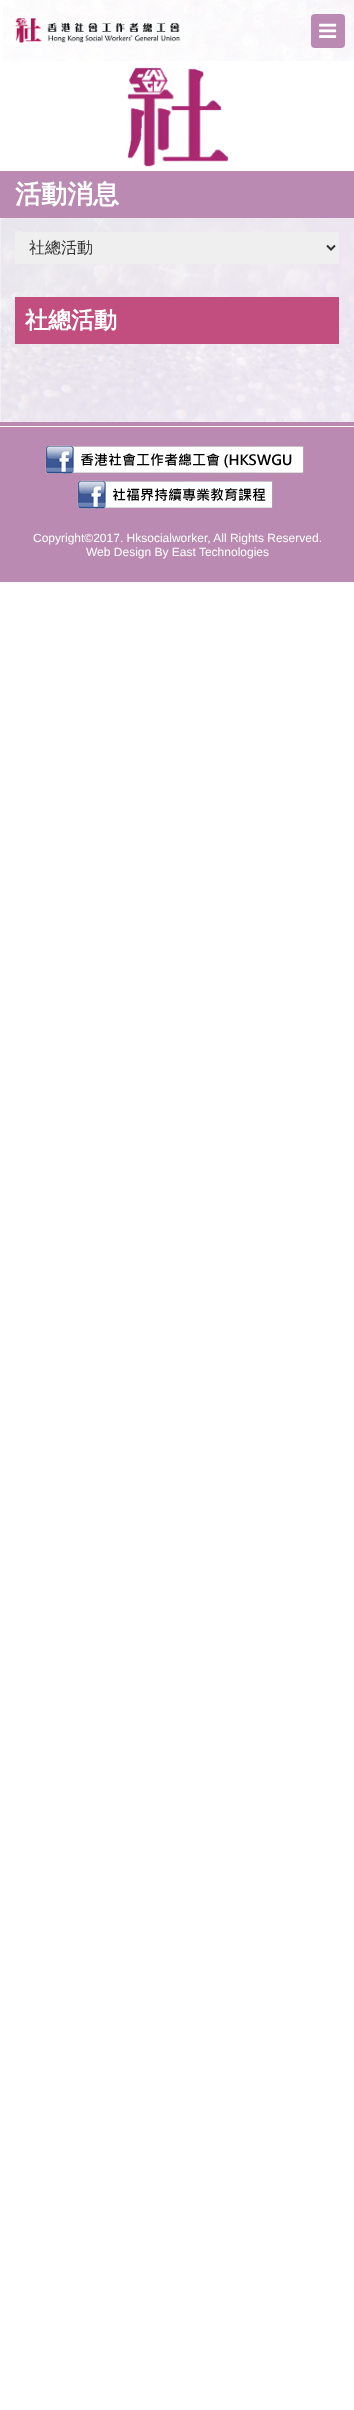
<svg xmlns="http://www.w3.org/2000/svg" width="354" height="2410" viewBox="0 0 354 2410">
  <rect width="100%" height="100%" fill="#fff"/>
  <image x="3" y="0" width="351" height="61" href="img/1.png"/>
  <image x="15" y="18" width="166" height="25" href="img/2.png"/>
  <rect x="311" y="14" width="34" height="34" rx="4" fill="#ba8ab2"/>
  <image x="319" y="23" width="18" height="15" href="img/3.png"/>
  <image x="127" y="67" width="102" height="100" href="img/4.png"/>
  <image x="0" y="218" width="354" height="204" href="img/5.png"/>
  <path d="M0 171h354v47H0z" fill="#ba8ab2"/>
  <path d="M15 232h324v32H15z" fill="#efefef"/>
  <path d="M327 245.5L331 249.5L335 245.5" fill="none" stroke="#333" stroke-width="2"/>
  <path d="M15 297h324v47H15z" fill="#c24e7f"/>
  <path d="M0 422h354v160H0z" fill="#ba8ab2"/>
  <path d="M0 426h354v1H0z" fill="#fff"/>
  <image x="45" y="445" width="259" height="29" href="img/6.png"/>
  <image x="77" y="480" width="196" height="29" href="img/7.png"/>
  <text x="15" y="203" font-family="WenQuanYi Zen Hei" font-size="26" font-weight="bold" fill="#fff">活動消息</text>
  <text x="29" y="253" font-family="WenQuanYi Zen Hei" font-size="16" font-weight="500" fill="#333">社總活動</text>
  <text x="25" y="328" font-family="WenQuanYi Zen Hei" font-size="23" font-weight="bold" fill="#fff">社總活動</text>
  <g font-family="Liberation Sans" font-size="12" fill="#fff">
    <text x="33" y="542">Copyright©2017. Hksocialworker, All Rights Reserved.</text>
    <text x="86" y="556">Web Design By East Technologies</text>
  </g>
</svg>
